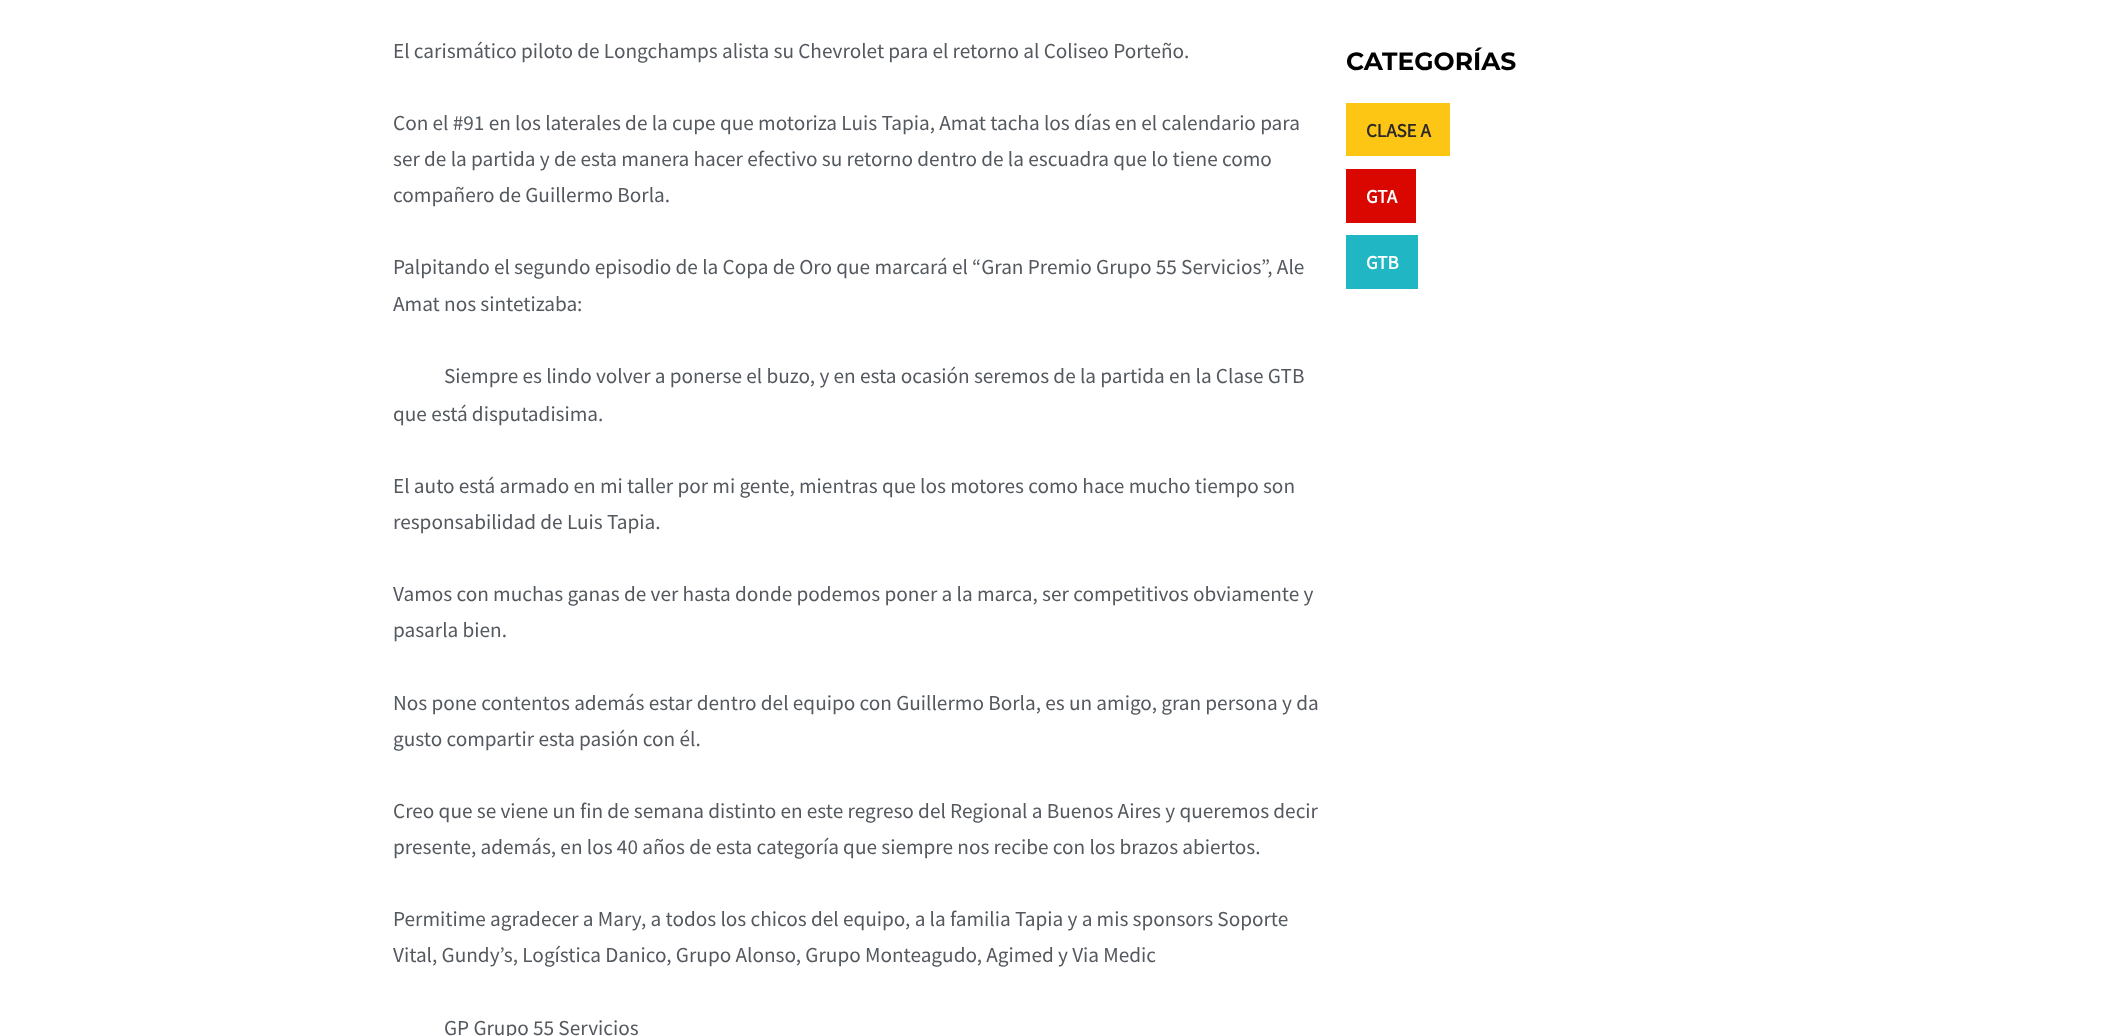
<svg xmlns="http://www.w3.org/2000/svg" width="2111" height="1036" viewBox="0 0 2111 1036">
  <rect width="100%" height="100%" fill="#fff"/>
  <path d="M1346 103h104v53H1346z" fill="#fdc614"/>
  <path d="M1346 169h70v54H1346z" fill="#d90700"/>
  <path d="M1346 235h72v54H1346z" fill="#21b6c3"/>
  <g font-family="Source Sans Pro" font-size="21.25" fill="#54595f">
    <text x="393" y="58">El carismático piloto de Longchamps alista su Chevrolet para el retorno al Coliseo Porteño.</text>
    <text x="393" y="130">Con el #91 en los laterales de la cupe que motoriza Luis Tapia, Amat tacha los días en el calendario para</text>
    <text x="393" y="166">ser de la partida y de esta manera hacer efectivo su retorno dentro de la escuadra que lo tiene como</text>
    <text x="393" y="202">compañero de Guillermo Borla.</text>
    <text x="393" y="274">Palpitando el segundo episodio de la Copa de Oro que marcará el “Gran Premio Grupo 55 Servicios”, Ale</text>
    <text x="393" y="311">Amat nos sintetizaba:</text>
    <text x="444" y="383">Siempre es lindo volver a ponerse el buzo, y en esta ocasión seremos de la partida en la Clase GTB</text>
    <text x="393" y="421">que está disputadisima.</text>
    <text x="393" y="493">El auto está armado en mi taller por mi gente, mientras que los motores como hace mucho tiempo son</text>
    <text x="393" y="529">responsabilidad de Luis Tapia.</text>
    <text x="393" y="601">Vamos con muchas ganas de ver hasta donde podemos poner a la marca, ser competitivos obviamente y</text>
    <text x="393" y="637">pasarla bien.</text>
    <text x="393" y="710">Nos pone contentos además estar dentro del equipo con Guillermo Borla, es un amigo, gran persona y da</text>
    <text x="393" y="746">gusto compartir esta pasión con él.</text>
    <text x="393" y="818">Creo que se viene un fin de semana distinto en este regreso del Regional a Buenos Aires y queremos decir</text>
    <text x="393" y="854">presente, además, en los 40 años de esta categoría que siempre nos recibe con los brazos abiertos.</text>
    <text x="393" y="926">Permitime agradecer a Mary, a todos los chicos del equipo, a la familia Tapia y a mis sponsors Soporte</text>
    <text x="393" y="962">Vital, Gundy’s, Logística Danico, Grupo Alonso, Grupo Monteagudo, Agimed y Via Medic</text>
    <text x="444" y="1035">GP Grupo 55 Servicios</text>
  </g>
  <text x="1346" y="70" font-family="Montserrat" font-size="25" font-weight="100" fill="#000">CATEGORÍAS</text>
  <text x="1366" y="137" font-family="Source Sans Pro" font-size="19" font-weight="bold" fill="#2c2927">CLASE A</text>
  <g font-family="Source Sans Pro" font-size="19" font-weight="bold" fill="#fff">
    <text x="1366" y="203">GTA</text>
    <text x="1366" y="269">GTB</text>
  </g>
</svg>
